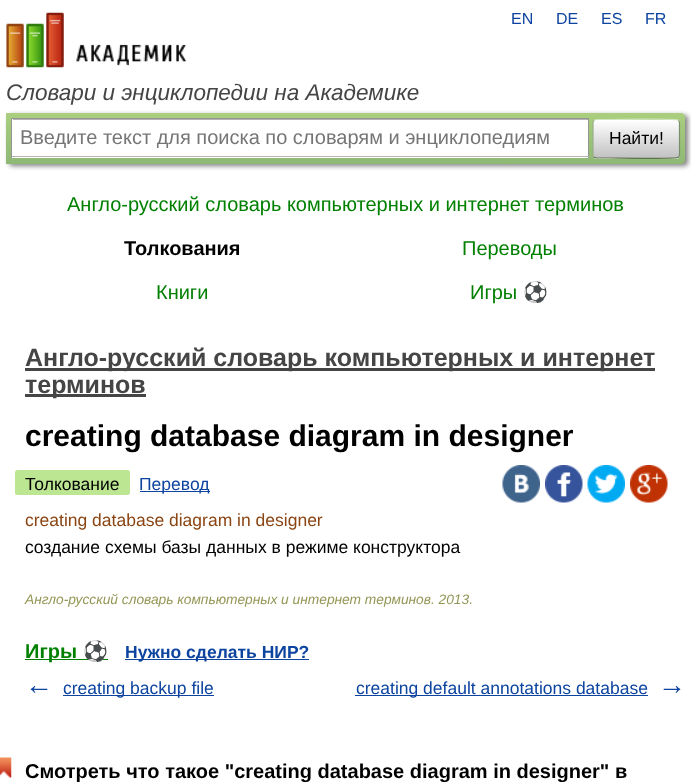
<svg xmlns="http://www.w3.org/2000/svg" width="691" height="782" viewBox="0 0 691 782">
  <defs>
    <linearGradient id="g1" gradientUnits="userSpaceOnUse" x1="346" y1="112" x2="346" y2="164"><stop offset="0" stop-color="#abcf7e"/><stop offset="1" stop-color="#8eb874"/></linearGradient>
    <clipPath id="clip1"><rect x="593" y="119" width="87" height="40" rx="4"/></clipPath>
    <linearGradient id="g2" gradientUnits="userSpaceOnUse" x1="636" y1="120" x2="636" y2="158"><stop offset="0" stop-color="#fff"/><stop offset="1" stop-color="#c1c1c1"/></linearGradient>
    <linearGradient id="g3" gradientUnits="userSpaceOnUse" x1="636" y1="158" x2="636" y2="195"><stop offset="0" stop-color="#fff"/><stop offset="1" stop-color="#c1c1c1"/></linearGradient>
  </defs>
  <rect width="100%" height="100%" fill="#fff"/>
  <image x="6" y="12" width="181" height="56" href="img/1.png"/>
  <rect x="9" y="115" width="679" height="51" rx="4" fill="#00000080" filter="blur(2.5px)"/>
  <path d="M6 113H681C683 113 685 115 685 117V160C685 162 683 164 681 164H6Z" fill="url(#g1)"/>
  <path d="M12 119h576v39H12z" fill="#fff"/>
  <path d="M13 119h575v1H13z" fill="#b3b3b3"/>
  <path d="M11 118h578v1H11z" fill="#949494"/>
  <path d="M588 118h1v40H588z" fill="#949494"/>
  <path d="M11 156h578v1H11z" fill="#b4b4b4"/>
  <path d="M11 118h1v40H11z" fill="#949494"/>
  <g clip-path="url(#clip1)">
    <path d="M593 120h87v38H593z" fill="url(#g2)"/>
    <path d="M593 158h87v1H593z" fill="url(#g3)"/>
  </g>
  <path d="M594 120.5L596 119.5H609.5C617 119.5 676 118.5 678 120L678.5 120.5" fill="none" stroke="#d1e4bc" stroke-width="1.2"/>
  <path d="M678.5 120.5C679 121 679.5 121.5 679.5 122.5V155C679.5 156 679 156.5 678.5 157" fill="none" stroke="#7a8e69" stroke-width="1.2"/>
  <path d="M678.5 157L678 157.5C676 159 617 158 609.5 158H596L594 157" fill="none" stroke="#5d7250" stroke-width="1.2"/>
  <path d="M594 157C593.5 156.5 593 156 593 155V122.5C593 121.5 593.5 121 594 120.5" fill="none" stroke="#9aae89" stroke-width="1.2"/>
  <path d="M25 368h630v3H25z" fill="#454545"/>
  <path d="M25 394h121v3H25z" fill="#454545"/>
  <rect x="15" y="470" width="115" height="25" rx="2.5" fill="#bde693"/>
  <path d="M140 491h70v1H140z" fill="#0d44a0"/>
  <image x="502" y="465" width="38" height="38" href="img/2.png"/>
  <image x="545" y="465" width="38" height="38" href="img/3.png"/>
  <image x="587" y="465" width="38" height="38" href="img/4.png"/>
  <image x="630" y="465" width="38" height="38" href="img/5.png"/>
  <path d="M25 659h83v1H25z" fill="#008000"/>
  <path d="M125 659h184v1H125z" fill="#0d44a0"/>
  <path d="M63 695h151v1H63z" fill="#0d44a0"/>
  <path d="M355 695h293v1H355z" fill="#0d44a0"/>
  <image x="0" y="757" width="12" height="21" href="img/6.png"/>
  <g font-family="Liberation Sans" font-size="16" fill="#0d44a0">
    <text x="511" y="24">EN</text>
    <text x="556" y="24">DE</text>
    <text x="601" y="24">ES</text>
    <text x="645" y="24">FR</text>
  </g>
  <text x="6" y="100" font-family="Liberation Sans" font-size="22.5" font-style="italic" fill="#454545">Словари и энциклопедии на Академике</text>
  <text x="20" y="144" font-family="Liberation Sans" font-size="20" fill="#757575">Введите текст для поиска по словарям и энциклопедиям</text>
  <text x="609" y="144" font-family="Liberation Sans" font-size="17.5" fill="#000">Найти!</text>
  <text x="67" y="211" font-family="Liberation Sans" font-size="20" fill="#008000">Англо-русский словарь компьютерных и интернет терминов</text>
  <text x="124" y="255" font-family="Liberation Sans" font-size="20" font-weight="bold" fill="#000">Толкования</text>
  <g font-family="Liberation Sans" font-size="20" fill="#008000">
    <text x="462" y="255">Переводы</text>
    <text x="156" y="299">Книги</text>
    <text x="470" y="299">Игры</text>
  </g>
  <text x="523" y="299" font-family="Noto Color Emoji" font-size="20" fill="#008000">⚽</text>
  <g font-family="Liberation Sans" font-size="25" font-weight="bold" fill="#454545">
    <text x="25" y="366">Англо-русский словарь компьютерных и интернет</text>
    <text x="25" y="393">терминов</text>
  </g>
  <text x="25" y="446" font-family="Liberation Sans" font-size="30" font-weight="bold" fill="#000">creating database diagram in designer</text>
  <text x="25" y="490" font-family="Liberation Sans" font-size="17.5" fill="#000">Толкование</text>
  <text x="139" y="490" font-family="Liberation Sans" font-size="17.5" fill="#0d44a0">Перевод</text>
  <text x="25" y="526" font-family="Liberation Sans" font-size="17.5" fill="#8b4513">creating database diagram in designer</text>
  <text x="25" y="553" font-family="Liberation Sans" font-size="17.5" fill="#000">cоздание схемы базы данных в режиме конструктора</text>
  <text x="25" y="604" font-family="Liberation Sans" font-size="13.75" font-style="italic" fill="#939756">Англо-русский словарь компьютерных и интернет терминов. 2013.</text>
  <text x="25" y="658" font-family="Liberation Sans" font-size="20" font-weight="bold" fill="#008000">Игры</text>
  <text x="83" y="658" font-family="Noto Color Emoji" font-size="20" font-weight="bold" fill="#008000">⚽</text>
  <text x="125" y="658" font-family="Liberation Sans" font-size="17.5" font-weight="bold" fill="#0d44a0">Нужно сделать НИР?</text>
  <text x="25" y="694" font-family="Liberation Sans" font-size="28" font-weight="bold" fill="#0d44a0">←</text>
  <g font-family="Liberation Sans" font-size="17.5" fill="#0d44a0">
    <text x="63" y="694">creating backup file</text>
    <text x="356" y="694">creating default annotations database</text>
  </g>
  <text x="658" y="694" font-family="Liberation Sans" font-size="28" font-weight="bold" fill="#0d44a0">→</text>
  <text x="25" y="778" font-family="Liberation Sans" font-size="20" font-weight="bold" fill="#000">Смотреть что такое "creating database diagram in designer" в</text>
</svg>
